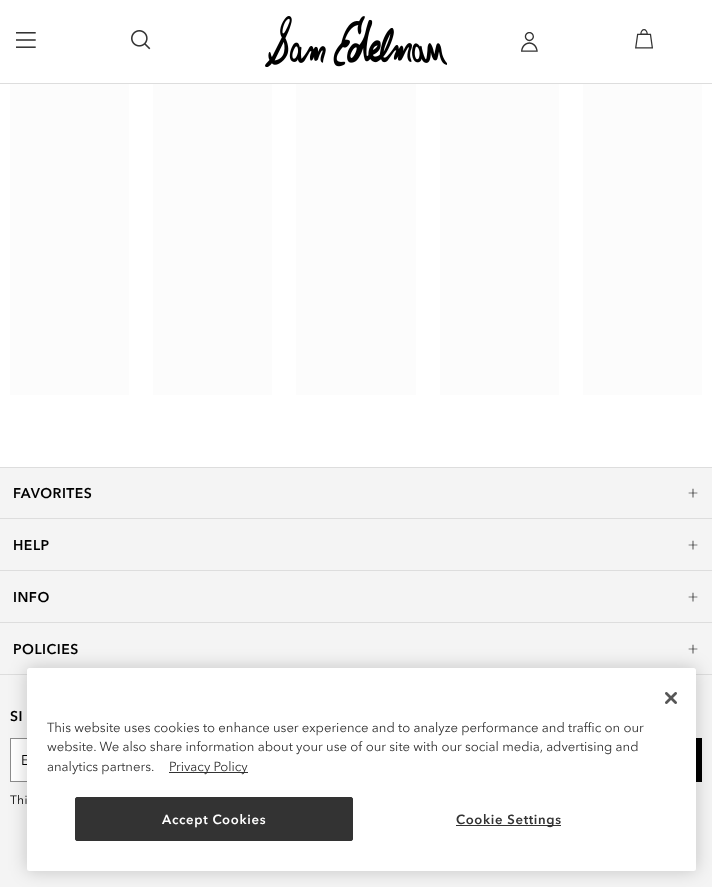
<svg xmlns="http://www.w3.org/2000/svg" width="712" height="887" viewBox="0 0 712 887">
  <rect width="100%" height="100%" fill="#fff"/>
  <path d="M0 83h712v1H0z" fill="#ddd"/>
  <image x="16" y="32" width="20" height="16" href="img/1.png"/>
  <image x="131" y="30" width="20" height="20" href="img/2.png"/>
  <image x="265" y="16" width="182" height="51" href="img/3.png"/>
  <image x="521" y="32" width="17" height="20" href="img/4.png"/>
  <image x="635" y="29" width="18" height="20" href="img/5.png"/>
  <path d="M10 84h119v311H10z" fill="#fcfcfc"/>
  <path d="M153 84h119v311H153z" fill="#fcfcfc"/>
  <path d="M296 84h120v311H296z" fill="#fcfcfc"/>
  <path d="M440 84h119v311H440z" fill="#fcfcfc"/>
  <path d="M583 84h119v311H583z" fill="#fcfcfc"/>
  <path d="M0 468h712v419H0z" fill="#f4f4f4"/>
  <path d="M0 467h712v1H0z" fill="#ddd"/>
  <path d="M0 518h712v1H0z" fill="#ddd"/>
  <image x="688" y="488" width="10" height="10" href="img/6.png"/>
  <path d="M0 570h712v1H0z" fill="#ddd"/>
  <image x="688" y="540" width="10" height="10" href="img/6.png"/>
  <path d="M0 622h712v1H0z" fill="#ddd"/>
  <image x="688" y="592" width="10" height="10" href="img/6.png"/>
  <path d="M0 674h712v1H0z" fill="#ddd"/>
  <image x="688" y="644" width="10" height="10" href="img/6.png"/>
  <path d="M11 739h16v42H11z" fill="#fff"/>
  <path d="M10 738h17v1H10z" fill="#8c8c8c"/>
  <path d="M10 781h17v1H10z" fill="#8c8c8c"/>
  <path d="M10 738h1v44H10z" fill="#8c8c8c"/>
  <path d="M696 738h6v44H696z" fill="#000"/>
  <rect x="27" y="668" width="669" height="203" rx="2.5" fill="#00000033" filter="blur(9px)"/>
  <g font-family="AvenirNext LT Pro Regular" font-size="14" font-weight="bold" letter-spacing="0.5" fill="#000">
    <text x="13" y="498">FAVORITES</text>
    <text x="13" y="550">HELP</text>
    <text x="13" y="602">INFO</text>
    <text x="13" y="654">POLICIES</text>
    <text x="10" y="721">SI</text>
  </g>
  <text x="21" y="765" font-family="AvenirNext LT Pro Regular" font-size="14" letter-spacing="0.5" fill="#000">E</text>
  <text x="10" y="804" font-family="AvenirNext LT Pro Regular" font-size="12" letter-spacing="0.5" fill="#000">Thi</text>
  <rect x="27" y="668" width="669" height="203" rx="2.5" fill="#fff"/>
  <image x="665" y="692" width="12" height="12" href="img/7.png"/>
  <g font-family="AvenirNext LT Pro Regular" font-size="13.1" fill="#333">
    <text x="47" y="732">This website uses cookies to enhance user experience and to analyze performance and traffic on our</text>
    <text x="47" y="751">website. We also share information about your use of our site with our social media, advertising and</text>
    <text x="47" y="771">analytics partners.</text>
  </g>
  <path d="M169 772h79v1H169z" fill="#333"/>
  <text x="169" y="771" font-family="AvenirNext LT Pro Regular" font-size="13.1" fill="#333">Privacy Policy</text>
  <rect x="75.5" y="797.5" width="277" height="43" rx="1.5" fill="#333" stroke="#333"/>
  <text x="162" y="824" font-family="AvenirNext LT Pro Regular" font-size="13.1" font-weight="bold" letter-spacing="0.7" fill="#fff">Accept Cookies</text>
  <path d="M456 825h105v1H456z" fill="#333"/>
  <text x="456" y="824" font-family="AvenirNext LT Pro Regular" font-size="13.1" font-weight="bold" letter-spacing="0.7" fill="#333">Cookie Settings</text>
</svg>
